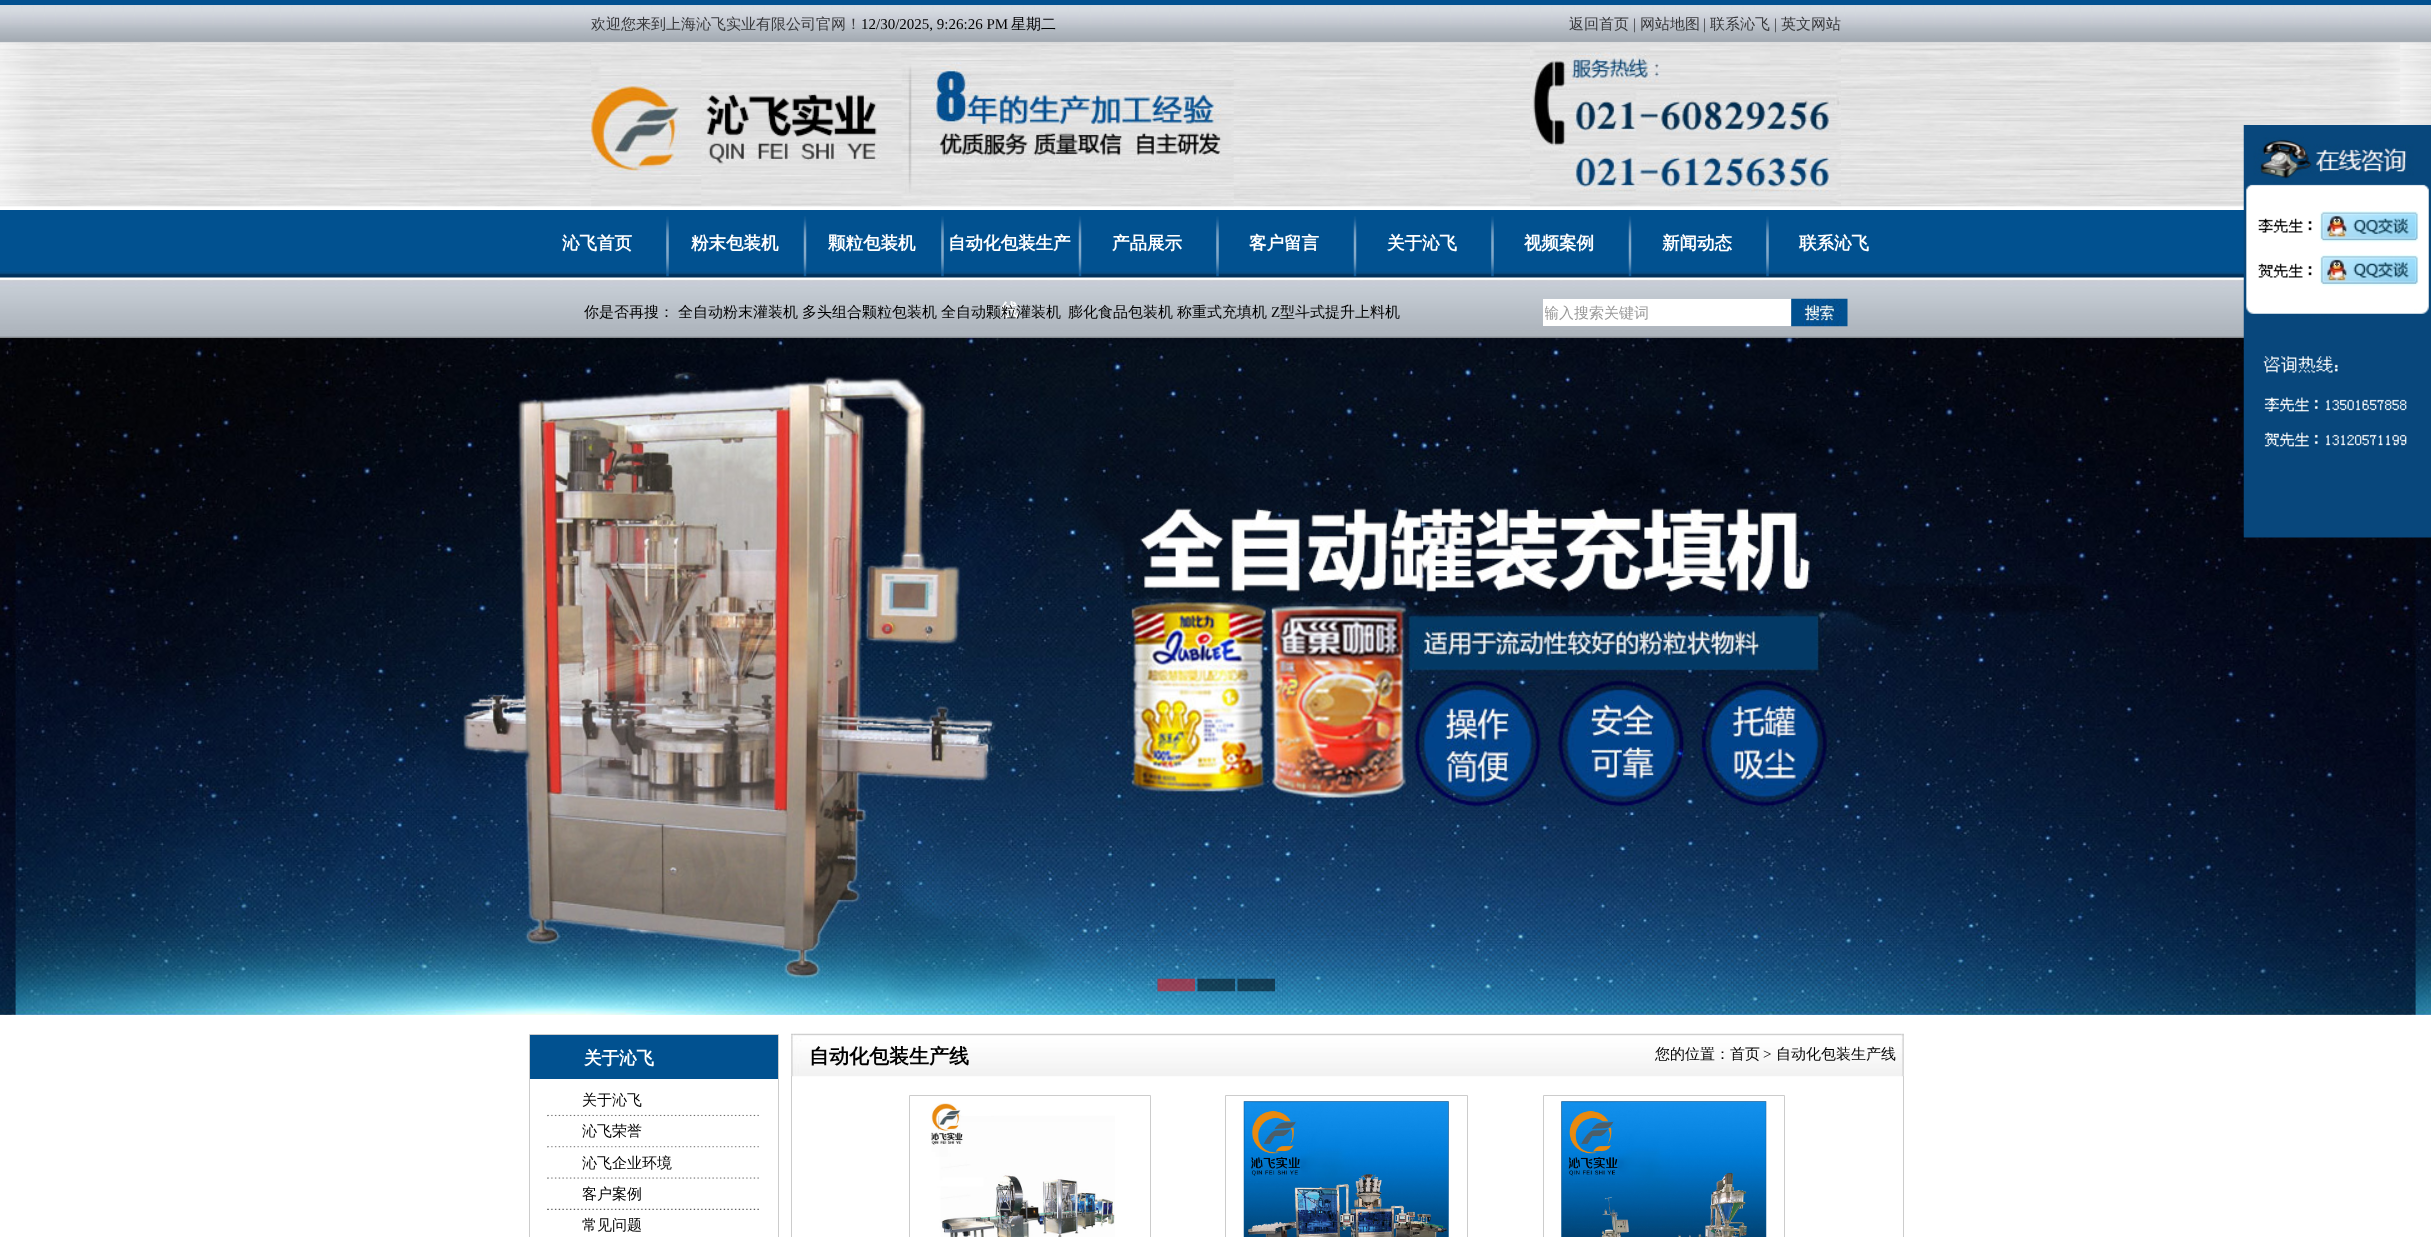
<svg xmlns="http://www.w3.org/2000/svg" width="2431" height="1237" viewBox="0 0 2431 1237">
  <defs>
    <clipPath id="clip1"><path d="M1545 300h244v25H1545z"/></clipPath>
  </defs>
  <rect width="100%" height="100%" fill="#fff"/>
  <image x="0" y="5" width="2431" height="38" href="img/1.png"/>
  <path d="M0 0h2431v5H0z" fill="#015090"/>
  <image x="0" y="42" width="2431" height="165" href="img/2.png"/>
  <image x="591" y="42" width="643" height="165" href="img/3.png"/>
  <image x="1530" y="42" width="311" height="165" href="img/4.png"/>
  <image x="0" y="210" width="2244" height="68" href="img/5.png"/>
  <image x="666" y="216" width="3" height="61" href="img/6.png"/>
  <image x="803" y="216" width="4" height="61" href="img/7.png"/>
  <image x="941" y="216" width="3" height="61" href="img/6.png"/>
  <image x="1078" y="216" width="4" height="61" href="img/7.png"/>
  <image x="1216" y="216" width="3" height="61" href="img/6.png"/>
  <image x="1353" y="216" width="4" height="61" href="img/7.png"/>
  <image x="1491" y="216" width="3" height="61" href="img/6.png"/>
  <image x="1628" y="216" width="4" height="61" href="img/7.png"/>
  <image x="1766" y="216" width="3" height="61" href="img/6.png"/>
  <image x="0" y="279" width="2244" height="59" href="img/9.png"/>
  <image x="0" y="337" width="2431" height="678" href="img/11.png"/>
  <image x="2243" y="125" width="188" height="413" href="img/8.png"/>
  <path d="M1543 299h248v27H1543z" fill="#fff"/>
  <image x="1791" y="298" width="57" height="29" href="img/10.png"/>
  <path d="M529.5 1034.5h249v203H529.5z" fill="none" stroke="#ccc"/>
  <path d="M530 1035h248v44H530z" fill="#015190"/>
  <image x="547" y="1114" width="212" height="3" href="img/12.png"/>
  <image x="547" y="1115" width="212" height="2" href="img/13.png"/>
  <image x="547" y="1116" width="212" height="32" href="img/14.png"/>
  <image x="547" y="1116" width="212" height="32" href="img/15.png"/>
  <image x="547" y="1147" width="212" height="32" href="img/16.png"/>
  <image x="547" y="1147" width="212" height="32" href="img/17.png"/>
  <image x="547" y="1178" width="212" height="32" href="img/18.png"/>
  <image x="547" y="1178" width="212" height="32" href="img/19.png"/>
  <image x="791" y="1033" width="1113" height="44" href="img/20.png"/>
  <path d="M1903 1076h1v161H1903z" fill="#ccc"/>
  <path d="M791 1076h1v161H791z" fill="#ccc"/>
  <path d="M909.5 1095.5h241v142H909.5z" fill="none" stroke="#ccc"/>
  <image x="931" y="1103" width="184" height="134" href="img/21.png"/>
  <path d="M1225.5 1095.5h242v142H1225.5z" fill="none" stroke="#ccc"/>
  <image x="1243" y="1101" width="206" height="136" href="img/22.png"/>
  <path d="M1543.5 1095.5h241v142H1543.5z" fill="none" stroke="#ccc"/>
  <image x="1561" y="1101" width="206" height="136" href="img/23.png"/>
  <text x="591" y="29" font-family="WenQuanYi Zen Hei" font-size="15" font-weight="500" fill="#37383b">欢迎您来到上海沁飞实业有限公司官网！</text>
  <text x="861" y="29" font-family="Liberation Serif" font-size="15" fill="#000">12/30/2025, 9:26:26 PM</text>
  <text x="1011" y="29" font-family="WenQuanYi Zen Hei" font-size="15" font-weight="500" fill="#000">星期二</text>
  <text x="1569" y="29" font-family="WenQuanYi Zen Hei" font-size="15" font-weight="500" fill="#37383b">返回首页</text>
  <text x="1633" y="29" font-family="Liberation Serif" font-size="15" fill="#37383b">|</text>
  <text x="1640" y="29" font-family="WenQuanYi Zen Hei" font-size="15" font-weight="500" fill="#37383b">网站地图</text>
  <text x="1703" y="29" font-family="Liberation Serif" font-size="15" fill="#37383b">|</text>
  <text x="1710" y="29" font-family="WenQuanYi Zen Hei" font-size="15" font-weight="500" fill="#37383b">联系沁飞</text>
  <text x="1774" y="29" font-family="Liberation Serif" font-size="15" fill="#37383b">|</text>
  <text x="1781" y="29" font-family="WenQuanYi Zen Hei" font-size="15" font-weight="500" fill="#37383b">英文网站</text>
  <g font-family="WenQuanYi Zen Hei" font-size="17.5" font-weight="bold" fill="#fff">
    <text x="562" y="249">沁飞首页</text>
    <text x="691" y="249">粉末包装机</text>
    <text x="828" y="249">颗粒包装机</text>
    <text x="948" y="249">自动化包装生产</text>
    <text x="1001" y="316">线</text>
    <text x="1112" y="249">产品展示</text>
    <text x="1249" y="249">客户留言</text>
    <text x="1387" y="249">关于沁飞</text>
    <text x="1524" y="249">视频案例</text>
    <text x="1662" y="249">新闻动态</text>
    <text x="1799" y="249">联系沁飞</text>
  </g>
  <g font-family="WenQuanYi Zen Hei" font-size="15" font-weight="500" fill="#000">
    <text x="584" y="317">你是否再搜：</text>
    <text x="678" y="317">全自动粉末灌装机</text>
    <text x="802" y="317">多头组合颗粒包装机</text>
    <text x="941" y="317">全自动颗粒灌装机</text>
    <text x="1068" y="317">膨化食品包装机</text>
    <text x="1177" y="317">称重式充填机</text>
  </g>
  <text x="1271" y="317" font-family="Liberation Serif" font-size="15" fill="#000">Z</text>
  <text x="1280" y="317" font-family="WenQuanYi Zen Hei" font-size="15" font-weight="500" fill="#000">型斗式提升上料机</text>
  <g clip-path="url(#clip1)">
    <text x="1544" y="318" font-family="WenQuanYi Zen Hei" font-size="15" font-weight="500" fill="#999">输入搜索关键词</text>
  </g>
  <text x="584" y="1064" font-family="WenQuanYi Zen Hei" font-size="17.5" font-weight="bold" fill="#fff">关于沁飞</text>
  <g font-family="WenQuanYi Zen Hei" font-size="15" font-weight="500" fill="#000">
    <text x="582" y="1105">关于沁飞</text>
    <text x="582" y="1136">沁飞荣誉</text>
    <text x="582" y="1168">沁飞企业环境</text>
    <text x="582" y="1199">客户案例</text>
    <text x="582" y="1230">常见问题</text>
  </g>
  <text x="809" y="1063" font-family="WenQuanYi Zen Hei" font-size="20" font-weight="bold" fill="#000">自动化包装生产线</text>
  <text x="1655" y="1059" font-family="WenQuanYi Zen Hei" font-size="15" font-weight="500" fill="#000">您的位置：首页</text>
  <text x="1763" y="1059" font-family="Liberation Serif" font-size="15" fill="#000">&gt;</text>
  <text x="1776" y="1059" font-family="WenQuanYi Zen Hei" font-size="15" font-weight="500" fill="#000">自动化包装生产线</text>
</svg>
